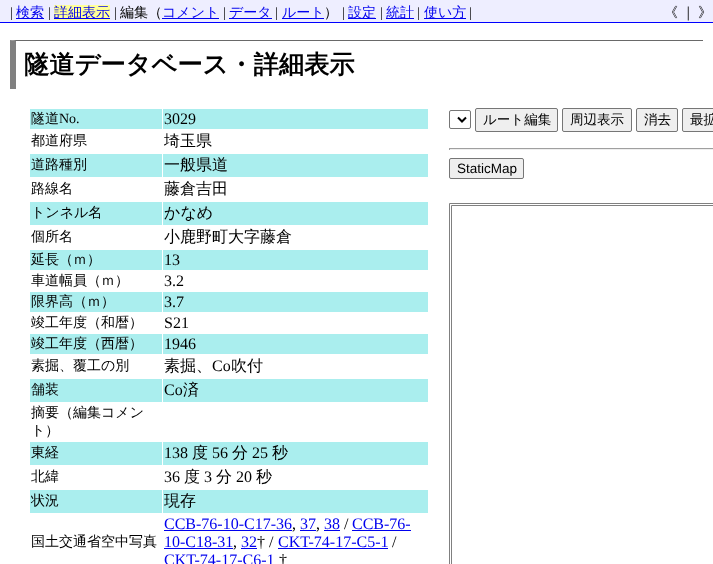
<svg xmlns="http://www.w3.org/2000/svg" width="713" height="564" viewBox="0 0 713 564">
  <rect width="100%" height="100%" fill="#fff"/>
  <path d="M0 0h713v22H0z" fill="#eef"/>
  <path d="M0 22h713v1H0z" fill="#00f"/>
  <path d="M16 18h28v1H16z" fill="#00e"/>
  <path d="M54 5h56v15H54z" fill="#ff9"/>
  <path d="M54 18h56v1H54z" fill="#00e"/>
  <path d="M162 18h57v1H162z" fill="#00e"/>
  <path d="M229 18h43v1H229z" fill="#00e"/>
  <path d="M282 18h42v1H282z" fill="#00e"/>
  <path d="M348 18h28v1H348z" fill="#00e"/>
  <path d="M386 18h28v1H386z" fill="#00e"/>
  <path d="M424 18h42v1H424z" fill="#00e"/>
  <path d="M10 40H703V41H16Z" fill="#696969"/>
  <path d="M10 89V40L16 41V89Z" fill="#808080"/>
  <path d="M30 109h132v20H30z" fill="#aee"/>
  <path d="M163 109h265v20H163z" fill="#aee"/>
  <path d="M30 154h132v23H30z" fill="#aee"/>
  <path d="M163 154h265v23H163z" fill="#aee"/>
  <path d="M30 202h132v23H30z" fill="#aee"/>
  <path d="M163 202h265v23H163z" fill="#aee"/>
  <path d="M30 250h132v20H30z" fill="#aee"/>
  <path d="M163 250h265v20H163z" fill="#aee"/>
  <path d="M30 292h132v20H30z" fill="#aee"/>
  <path d="M163 292h265v20H163z" fill="#aee"/>
  <path d="M30 334h132v20H30z" fill="#aee"/>
  <path d="M163 334h265v20H163z" fill="#aee"/>
  <path d="M30 379h132v23H30z" fill="#aee"/>
  <path d="M163 379h265v23H163z" fill="#aee"/>
  <path d="M30 442h132v23H30z" fill="#aee"/>
  <path d="M163 442h265v23H163z" fill="#aee"/>
  <path d="M30 490h132v23H30z" fill="#aee"/>
  <path d="M163 490h265v23H163z" fill="#aee"/>
  <path d="M164 530h128v1H164z" fill="#00e"/>
  <path d="M300 530h16v1H300z" fill="#00e"/>
  <path d="M324 530h16v1H324z" fill="#00e"/>
  <path d="M352 530h59v1H352z" fill="#00e"/>
  <path d="M164 548h69v1H164z" fill="#00e"/>
  <path d="M241 548h16v1H241z" fill="#00e"/>
  <path d="M278 548h110v1H278z" fill="#00e"/>
  <rect x="449.5" y="110.5" width="21" height="18" rx="1.5" fill="none" stroke="#767676"/>
  <path d="M458 117.5L462 121.5L466 117.5" fill="none" stroke="#000" stroke-width="2"/>
  <rect x="475.5" y="108.5" width="82" height="23" rx="1.5" fill="#efefef" stroke="#767676"/>
  <rect x="562.5" y="108.5" width="69" height="23" rx="1.5" fill="#efefef" stroke="#767676"/>
  <rect x="636.5" y="108.5" width="41" height="23" rx="1.5" fill="#efefef" stroke="#767676"/>
  <rect x="682.5" y="108.5" width="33" height="23" rx="1.5" fill="#efefef" stroke="#767676"/>
  <path d="M449 148h264v1H449z" fill="#9f9f9f"/>
  <path d="M449 149h264v1H449z" fill="#eee"/>
  <path d="M449 148h1v2H449z" fill="#9f9f9f"/>
  <rect x="449.5" y="158.5" width="74" height="20" rx="1.5" fill="#efefef" stroke="#767676"/>
  <path d="M449.5 203.5h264v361H449.5z" fill="none" stroke="#808080"/>
  <path d="M451.5 205.5h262v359H451.5z" fill="none" stroke="#808080"/>
  <text x="10" y="17" font-family="Liberation Serif" font-size="14" fill="#000">|</text>
  <text x="16" y="17" font-family="WenQuanYi Zen Hei" font-size="14" font-weight="500" fill="#00e">検索</text>
  <text x="48" y="17" font-family="Liberation Serif" font-size="14" fill="#000">|</text>
  <text x="54" y="17" font-family="WenQuanYi Zen Hei" font-size="14" font-weight="500" fill="#00e">詳細表示</text>
  <text x="114" y="17" font-family="Liberation Serif" font-size="14" fill="#000">|</text>
  <text x="120" y="17" font-family="WenQuanYi Zen Hei" font-size="14" font-weight="500" fill="#000">編集（</text>
  <text x="162" y="17" font-family="WenQuanYi Zen Hei" font-size="14" font-weight="500" fill="#00e">コメント</text>
  <text x="223" y="17" font-family="Liberation Serif" font-size="14" fill="#000">|</text>
  <text x="229" y="17" font-family="WenQuanYi Zen Hei" font-size="14" font-weight="500" fill="#00e">データ</text>
  <text x="275" y="17" font-family="Liberation Serif" font-size="14" fill="#000">|</text>
  <text x="282" y="17" font-family="WenQuanYi Zen Hei" font-size="14" font-weight="500" fill="#00e">ルート</text>
  <text x="324" y="17" font-family="WenQuanYi Zen Hei" font-size="14" font-weight="500" fill="#000">）</text>
  <text x="342" y="17" font-family="Liberation Serif" font-size="14" fill="#000">|</text>
  <text x="348" y="17" font-family="WenQuanYi Zen Hei" font-size="14" font-weight="500" fill="#00e">設定</text>
  <text x="380" y="17" font-family="Liberation Serif" font-size="14" fill="#000">|</text>
  <text x="386" y="17" font-family="WenQuanYi Zen Hei" font-size="14" font-weight="500" fill="#00e">統計</text>
  <text x="417" y="17" font-family="Liberation Serif" font-size="14" fill="#000">|</text>
  <text x="424" y="17" font-family="WenQuanYi Zen Hei" font-size="14" font-weight="500" fill="#00e">使い方</text>
  <text x="469" y="17" font-family="Liberation Serif" font-size="14" fill="#000">|</text>
  <text x="664" y="17" word-spacing="-1" font-family="WenQuanYi Zen Hei" font-size="14" font-weight="500" fill="#000">《 ｜ 》</text>
  <text x="24" y="73" font-family="WenQuanYi Zen Hei" font-size="25.25" font-weight="bold" fill="#000">隧道データベース・詳細表示</text>
  <text x="31" y="123" font-family="WenQuanYi Zen Hei" font-size="14" font-weight="500" fill="#000">隧道</text>
  <text x="59" y="123" font-family="Liberation Serif" font-size="14" fill="#000">No.</text>
  <text x="164" y="124" font-family="Liberation Serif" font-size="16" fill="#000">3029</text>
  <text x="31" y="145" font-family="WenQuanYi Zen Hei" font-size="14" font-weight="500" fill="#000">都道府県</text>
  <text x="164" y="146" font-family="WenQuanYi Zen Hei" font-size="16" font-weight="500" fill="#000">埼玉県</text>
  <text x="31" y="169" font-family="WenQuanYi Zen Hei" font-size="14" font-weight="500" fill="#000">道路種別</text>
  <text x="164" y="170" font-family="WenQuanYi Zen Hei" font-size="16" font-weight="500" fill="#000">一般県道</text>
  <text x="31" y="193" font-family="WenQuanYi Zen Hei" font-size="14" font-weight="500" fill="#000">路線名</text>
  <text x="164" y="194" font-family="WenQuanYi Zen Hei" font-size="16" font-weight="500" fill="#000">藤倉吉田</text>
  <text x="31" y="217" font-family="WenQuanYi Zen Hei" font-size="14" font-weight="500" fill="#000">トンネル名</text>
  <text x="164" y="218" font-family="WenQuanYi Zen Hei" font-size="16" font-weight="500" fill="#000">かなめ</text>
  <text x="31" y="241" font-family="WenQuanYi Zen Hei" font-size="14" font-weight="500" fill="#000">個所名</text>
  <text x="164" y="242" font-family="WenQuanYi Zen Hei" font-size="16" font-weight="500" fill="#000">小鹿野町大字藤倉</text>
  <text x="31" y="264" font-family="WenQuanYi Zen Hei" font-size="14" font-weight="500" fill="#000">延長（ｍ）</text>
  <text x="164" y="265" font-family="Liberation Serif" font-size="16" fill="#000">13</text>
  <text x="31" y="285" font-family="WenQuanYi Zen Hei" font-size="14" font-weight="500" fill="#000">車道幅員（ｍ）</text>
  <text x="164" y="286" font-family="Liberation Serif" font-size="16" fill="#000">3.2</text>
  <text x="31" y="306" font-family="WenQuanYi Zen Hei" font-size="14" font-weight="500" fill="#000">限界高（ｍ）</text>
  <text x="164" y="307" font-family="Liberation Serif" font-size="16" fill="#000">3.7</text>
  <text x="31" y="327" font-family="WenQuanYi Zen Hei" font-size="14" font-weight="500" fill="#000">竣工年度（和暦）</text>
  <text x="164" y="328" font-family="Liberation Serif" font-size="16" fill="#000">S21</text>
  <text x="31" y="348" font-family="WenQuanYi Zen Hei" font-size="14" font-weight="500" fill="#000">竣工年度（西暦）</text>
  <text x="164" y="349" font-family="Liberation Serif" font-size="16" fill="#000">1946</text>
  <text x="31" y="370" font-family="WenQuanYi Zen Hei" font-size="14" font-weight="500" fill="#000">素掘、覆工の別</text>
  <text x="164" y="371" font-family="WenQuanYi Zen Hei" font-size="16" font-weight="500" fill="#000">素掘、</text>
  <text x="212" y="371" font-family="Liberation Serif" font-size="16" fill="#000">Co</text>
  <text x="231" y="371" font-family="WenQuanYi Zen Hei" font-size="16" font-weight="500" fill="#000">吹付</text>
  <text x="31" y="394" font-family="WenQuanYi Zen Hei" font-size="14" font-weight="500" fill="#000">舗装</text>
  <text x="164" y="395" font-family="Liberation Serif" font-size="16" fill="#000">Co</text>
  <text x="183" y="395" font-family="WenQuanYi Zen Hei" font-size="16" font-weight="500" fill="#000">済</text>
  <g font-family="WenQuanYi Zen Hei" font-size="14" font-weight="500" fill="#000">
    <text x="31" y="417">摘要（編集コメン</text>
    <text x="31" y="435">ト）</text>
    <text x="31" y="457">東経</text>
  </g>
  <text x="164" y="458" font-family="Liberation Serif" font-size="16" fill="#000">138</text>
  <text x="192" y="458" font-family="WenQuanYi Zen Hei" font-size="16" font-weight="500" fill="#000">度</text>
  <text x="212" y="458" font-family="Liberation Serif" font-size="16" fill="#000">56</text>
  <text x="232" y="458" font-family="WenQuanYi Zen Hei" font-size="16" font-weight="500" fill="#000">分</text>
  <text x="252" y="458" font-family="Liberation Serif" font-size="16" fill="#000">25</text>
  <text x="272" y="458" font-family="WenQuanYi Zen Hei" font-size="16" font-weight="500" fill="#000">秒</text>
  <text x="31" y="481" font-family="WenQuanYi Zen Hei" font-size="14" font-weight="500" fill="#000">北緯</text>
  <text x="164" y="482" font-family="Liberation Serif" font-size="16" fill="#000">36</text>
  <text x="184" y="482" font-family="WenQuanYi Zen Hei" font-size="16" font-weight="500" fill="#000">度</text>
  <text x="204" y="482" font-family="Liberation Serif" font-size="16" fill="#000">3</text>
  <text x="216" y="482" font-family="WenQuanYi Zen Hei" font-size="16" font-weight="500" fill="#000">分</text>
  <text x="236" y="482" font-family="Liberation Serif" font-size="16" fill="#000">20</text>
  <text x="256" y="482" font-family="WenQuanYi Zen Hei" font-size="16" font-weight="500" fill="#000">秒</text>
  <text x="31" y="505" font-family="WenQuanYi Zen Hei" font-size="14" font-weight="500" fill="#000">状況</text>
  <text x="164" y="506" font-family="WenQuanYi Zen Hei" font-size="16" font-weight="500" fill="#000">現存</text>
  <text x="31" y="546" font-family="WenQuanYi Zen Hei" font-size="14" font-weight="500" fill="#000">国土交通省空中写真</text>
  <text x="164" y="529" font-family="Liberation Serif" font-size="16" fill="#00e">CCB-76-10-C17-36</text>
  <text x="292" y="529" font-family="Liberation Serif" font-size="16" fill="#000">,</text>
  <text x="300" y="529" font-family="Liberation Serif" font-size="16" fill="#00e">37</text>
  <text x="316" y="529" font-family="Liberation Serif" font-size="16" fill="#000">,</text>
  <text x="324" y="529" font-family="Liberation Serif" font-size="16" fill="#00e">38</text>
  <text x="344" y="529" font-family="Liberation Serif" font-size="16" fill="#000">/</text>
  <g font-family="Liberation Serif" font-size="16" fill="#00e">
    <text x="352" y="529">CCB-76-</text>
    <text x="164" y="547">10-C18-31</text>
  </g>
  <text x="233" y="547" font-family="Liberation Serif" font-size="16" fill="#000">,</text>
  <text x="241" y="547" font-family="Liberation Serif" font-size="16" fill="#00e">32</text>
  <text x="257" y="547" font-family="Liberation Serif" font-size="16" fill="#000">† /</text>
  <text x="278" y="547" font-family="Liberation Serif" font-size="16" fill="#00e">CKT-74-17-C5-1</text>
  <text x="392" y="547" font-family="Liberation Serif" font-size="16" fill="#000">/</text>
  <text x="164" y="565" font-family="Liberation Serif" font-size="16" fill="#00e">CKT-74-17-C6-1</text>
  <text x="279" y="565" font-family="Liberation Serif" font-size="16" fill="#000">†</text>
  <g font-family="WenQuanYi Zen Hei" font-size="13.5" font-weight="500" fill="#000">
    <text x="483" y="124">ルート編集</text>
    <text x="570" y="124">周辺表示</text>
    <text x="644" y="124">消去</text>
    <text x="690" y="124">最拡</text>
  </g>
  <text x="457" y="173" font-family="Liberation Sans" font-size="13.5" fill="#000">StaticMap</text>
</svg>
